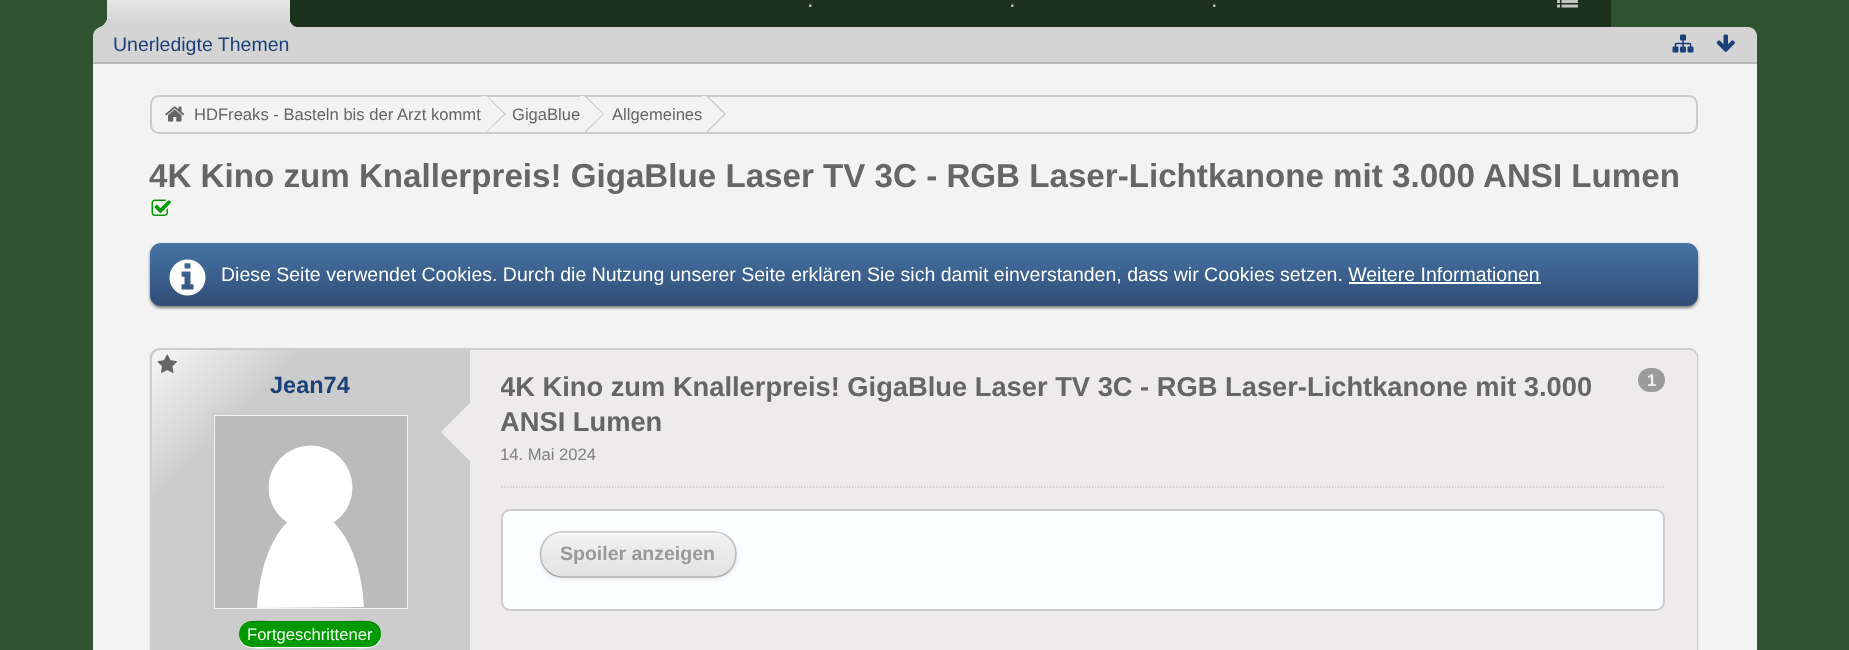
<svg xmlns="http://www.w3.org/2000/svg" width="1849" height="650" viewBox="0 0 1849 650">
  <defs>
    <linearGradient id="g1" gradientUnits="userSpaceOnUse" x1="198" y1="-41" x2="198" y2="27"><stop offset="0" stop-color="#fff"/><stop offset="1" stop-color="#d4d4d4"/></linearGradient>
    <linearGradient id="g2" gradientUnits="userSpaceOnUse" x1="924" y1="243" x2="924" y2="306"><stop offset="0" stop-color="#4674a4"/><stop offset="1" stop-color="#304d77"/></linearGradient>
    <linearGradient id="g3" gradientUnits="userSpaceOnUse" x1="152" y1="350" x2="344" y2="542"><stop offset="0" stop-color="#f7f7f7"/><stop offset="0.4" stop-color="#ccc"/></linearGradient>
    <clipPath id="clip1"><rect x="540" y="531" width="197" height="47" rx="23"/></clipPath>
    <linearGradient id="g4" gradientUnits="userSpaceOnUse" x1="638" y1="489" x2="638" y2="533"><stop offset="0" stop-color="#fdfdfd"/><stop offset="0.07" stop-color="#f0f0f0"/><stop offset="1" stop-color="#e3e3e3"/></linearGradient>
    <linearGradient id="g5" gradientUnits="userSpaceOnUse" x1="638" y1="533" x2="638" y2="576"><stop offset="0" stop-color="#fdfdfd"/><stop offset="0.07" stop-color="#f0f0f0"/><stop offset="1" stop-color="#e3e3e3"/></linearGradient>
    <linearGradient id="g6" gradientUnits="userSpaceOnUse" x1="638" y1="576" x2="638" y2="620"><stop offset="0" stop-color="#fdfdfd"/><stop offset="0.07" stop-color="#f0f0f0"/><stop offset="1" stop-color="#e3e3e3"/></linearGradient>
    <clipPath id="clip2"><path d="M501 371h1137v69H501z"/></clipPath>
  </defs>
  <rect width="100%" height="100%" fill="#2f532e"/>
  <path d="M290 0h1321v27H290z" fill="#1c321c"/>
  <path d="M107 0h183v27H107z" fill="url(#g1)"/>
  <path d="M102 27H1748C1753 27 1757 31 1757 36V63H93V36C93 31 97 27 102 27Z" fill="#d4d4d4"/>
  <path d="M99 27V30C105.5 30 110 27.5 110 20H106.5C105.5 23.5 102.5 26.5 99 27Z" fill="#d4d4d4"/>
  <path d="M287 20C287 26.5 290.5 30 297 30V27C293.5 26.5 290.5 23.5 289.5 20Z" fill="#d4d4d4"/>
  <image x="1557" y="0" width="21" height="8" href="img/1.png"/>
  <path d="M93 62h1664v2H93z" fill="#b8b8b8"/>
  <image x="1672" y="34" width="22" height="19" href="img/2.png"/>
  <image x="1716" y="34" width="19" height="18" href="img/3.png"/>
  <path d="M93 64h1664v586H93z" fill="#f3f3f3"/>
  <rect x="151" y="96" width="1546" height="37" rx="8" fill="none" stroke="#ccc" stroke-width="2"/>
  <image x="165" y="106" width="20" height="16" href="img/4.png"/>
  <path d="M487 96L506 114L487 132H483V96Z" fill="#ccc"/>
  <path d="M486 96L504 114L486 132H482V96Z" fill="#f3f3f3"/>
  <path d="M586 96L604 114L586 132H582V96Z" fill="#ccc"/>
  <path d="M584 96L603 114L584 132H580V96Z" fill="#f3f3f3"/>
  <path d="M708 96L726 114L708 132H704V96Z" fill="#ccc"/>
  <path d="M706 96L724 114L706 132H702V96Z" fill="#f3f3f3"/>
  <image x="151" y="199" width="20" height="17" href="img/5.png"/>
  <rect x="150" y="245" width="1548" height="63" rx="11" fill="#00000080" filter="blur(1.5px)"/>
  <rect x="150" y="243" width="1548" height="63" rx="11" fill="url(#g2)"/>
  <image x="169" y="259" width="37" height="37" href="img/6.png"/>
  <path d="M1349 282h192v2H1349z" fill="#fff"/>
  <rect x="150" y="350" width="1548" height="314" rx="9" fill="#0000001a" filter="blur(1.5px)"/>
  <rect x="151" y="349" width="1546" height="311" rx="8" fill="#ccc" stroke="#ccc" stroke-width="2"/>
  <path d="M161 350H344V542H152V359C152 354 156 350 161 350Z" fill="url(#g3)"/>
  <image x="157" y="354" width="20" height="19" href="img/7.png"/>
  <path d="M213 414h196v196H213z" fill="#f3f3f3" stroke="#ccc" stroke-width="2"/>
  <path d="M215 416h192v192H215z" fill="#bbb"/>
  <path d="M257 608C260 553 283 512 310 512C338 512 361 553 364 607" fill="#fff"/>
  <circle cx="310.5" cy="487.5" r="42" fill="#fff"/>
  <path d="M239 638C242 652 262 648 271 648H349C359 648 382 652 381 635C381 641 375 646 368 646H251C246 646 241 643 239 638Z" fill="#fff"/>
  <rect x="239" y="621" width="142" height="26" rx="13" fill="#090"/>
  <path d="M251 622H368C375 622 381 628 381 635C382 617 359 621 349 621H271C264 621 248 618 242 626C244 624 247 622 251 622Z" fill="#00000033"/>
  <path d="M468 350H1689C1693.5 350 1697 353.5 1697 358V650C1697 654.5 1693.5 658 1689 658H468Z" fill="#edebeb"/>
  <path d="M468 350h2v300H468z" fill="#ccc"/>
  <path d="M471 402V462L441 432Z" fill="#edebeb"/>
  <rect x="1638" y="368" width="27" height="24" rx="12" fill="#9c9b9b"/>
  <path d="M501 487H1665" fill="none" stroke="#ccc" stroke-width="1.5" stroke-dasharray="1.5 1.5"/>
  <rect x="502" y="510" width="1162" height="100" rx="8" fill="#fcfdfe" stroke="#ccc" stroke-width="2"/>
  <rect x="540" y="533" width="197" height="46" rx="23" fill="#0000001a" filter="blur(2px)"/>
  <g clip-path="url(#clip1)">
    <path d="M553 531h171v2H553z" fill="url(#g4)"/>
    <path d="M540 533h197v43H540z" fill="url(#g5)"/>
    <path d="M553 576h171v2H553z" fill="url(#g6)"/>
  </g>
  <path d="M547 538C551 534 556.5 532 562.5 532H714C720 532 725.5 534 729.5 538" fill="none" stroke="#cdcdcd" stroke-width="1.5"/>
  <path d="M729.5 538C738 546.5 738 562 729.5 570.5" fill="none" stroke="#bbb" stroke-width="1.5"/>
  <path d="M729.5 570.5C725.5 574.5 720 577 714 577H562.5C556.5 577 551 574.5 547 570.5" fill="none" stroke="#a9a9a9" stroke-width="1.5"/>
  <path d="M547 570.5C538.5 562 538.5 546.5 547 538" fill="none" stroke="#bbb" stroke-width="1.5"/>
  <g font-family="Liberation Sans" font-size="23.5" fill="#c3c3c3">
    <text x="807" y="7">.</text>
    <text x="1009" y="7">.</text>
    <text x="1211" y="7">.</text>
  </g>
  <text x="113" y="51" font-family="Liberation Sans" font-size="19.5" fill="#1b4078">Unerledigte Themen</text>
  <g font-family="Liberation Sans" font-size="16.6" fill="#666">
    <text x="194" y="120">HDFreaks - Basteln bis der Arzt kommt</text>
    <text x="512" y="120">GigaBlue</text>
    <text x="612" y="120">Allgemeines</text>
  </g>
  <text x="149" y="187" font-family="Liberation Sans" font-size="33.15" font-weight="bold" fill="#666">4K Kino zum Knallerpreis! GigaBlue Laser TV 3C - RGB Laser-Lichtkanone mit 3.000 ANSI Lumen</text>
  <text x="221" y="281" font-family="Liberation Sans" font-size="19.5" fill="#fff">Diese Seite verwendet Cookies. Durch die Nutzung unserer Seite erklären Sie sich damit einverstanden, dass wir Cookies setzen. Weitere Informationen</text>
  <text x="270" y="393" font-family="Liberation Sans" font-size="23.5" font-weight="bold" fill="#1b4078">Jean74</text>
  <text x="247" y="640" font-family="Liberation Sans" font-size="16.6" fill="#efe">Fortgeschrittener</text>
  <g clip-path="url(#clip2)">
    <text x="500" y="396" font-family="Liberation Sans" font-size="27.3" font-weight="bold" fill="#666">4K Kino zum Knallerpreis! GigaBlue Laser TV 3C - RGB Laser-Lichtkanone mit 3.000</text>
  </g>
  <text x="500" y="431" font-family="Liberation Sans" font-size="27.3" font-weight="bold" fill="#666">ANSI Lumen</text>
  <text x="500" y="460" font-family="Liberation Sans" font-size="16.6" fill="#808080">14. Mai 2024</text>
  <text x="1647" y="386" font-family="Liberation Sans" font-size="16.6" font-weight="bold" fill="#f1f0f0">1</text>
  <text x="560" y="560" font-family="Liberation Sans" font-size="19.5" font-weight="bold" fill="#999">Spoiler anzeigen</text>
</svg>
